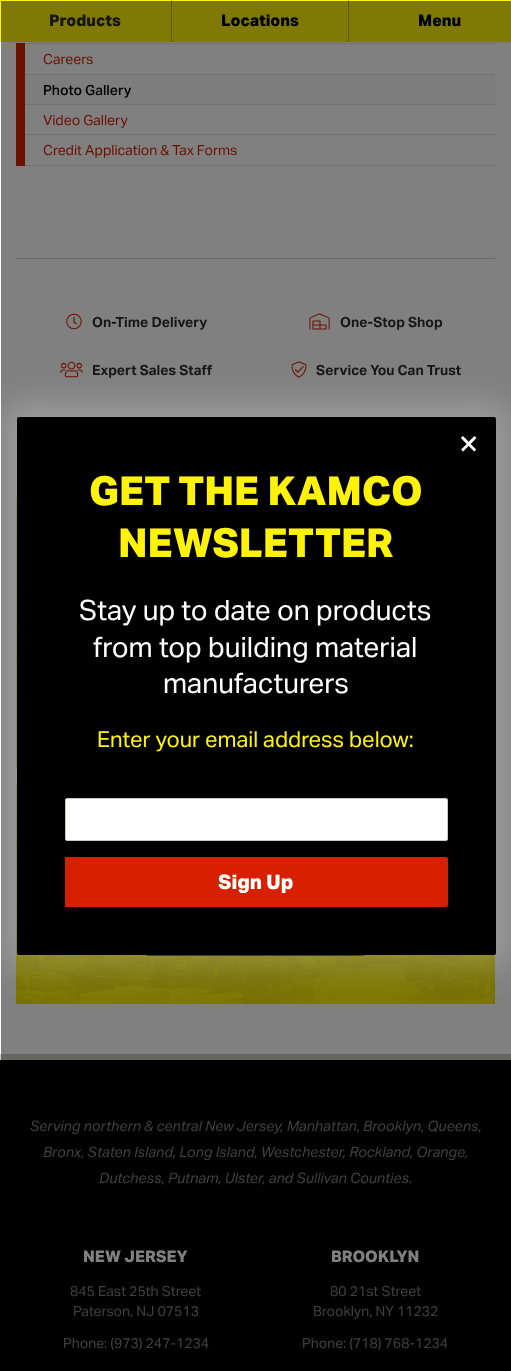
<svg xmlns="http://www.w3.org/2000/svg" width="511" height="1371" viewBox="0 0 511 1371">
  <rect width="100%" height="100%" fill="#000"/>
  <path d="M0 0h511v42H0z" fill="#fff20a"/>
  <path d="M1 1h510v41H1z" fill="#807905"/>
  <path d="M171 0h1v1H171z" fill="#bfb608"/>
  <path d="M171 1h1v41H171z" fill="#605b04"/>
  <path d="M348 0h1v1H348z" fill="#bfb608"/>
  <path d="M348 1h1v41H348z" fill="#605b04"/>
  <path d="M0 42h1v1012H0z" fill="#fff"/>
  <path d="M1 42h510v1012H1z" fill="#808080"/>
  <path d="M16 43h9v123H16z" fill="#6c1000"/>
  <path d="M25 165h470v1H25z" fill="#727171"/>
  <path d="M25 43h470v1H25z" fill="#727171"/>
  <path d="M25 74h470v1H25z" fill="#727171"/>
  <path d="M25 75h470v29H25z" fill="#7d7d7d"/>
  <path d="M25 104h470v1H25z" fill="#727171"/>
  <path d="M25 134h470v1H25z" fill="#727171"/>
  <path d="M16 258h479v1H16z" fill="#6d6b68"/>
  <path d="M16 433h1v1H16z" fill="#6d6b68"/>
  <image x="66" y="313" width="16" height="17" href="img/1.png"/>
  <image x="309" y="313" width="21" height="17" href="img/2.png"/>
  <image x="60" y="361" width="23" height="17" href="img/3.png"/>
  <image x="291" y="361" width="16" height="17" href="img/4.png"/>
  <image x="16" y="498" width="1" height="270" href="img/5.png"/>
  <image x="16" y="784" width="479" height="220" href="img/6.png"/>
  <rect x="146" y="918" width="219" height="38" rx="2" fill="#171616"/>
  <rect x="2" y="402" width="509" height="568" rx="17" fill="#ffffff33" filter="blur(15px)"/>
  <rect x="17" y="417" width="479" height="538" rx="2" fill="#000"/>
  <rect x="65.5" y="798.5" width="382" height="42" rx="1.5" fill="#fff" stroke="#cdc9c1"/>
  <path d="M65 857H446C447 857 448 858 448 859V905C448 906 447 907 446 907H65Z" fill="#d72000"/>
  <path d="M0 1054h1v6H0z" fill="#cdc9c1"/>
  <path d="M1 1054h510v6H1z" fill="#676561"/>
  <text x="49" y="26" font-family="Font" font-size="16" font-weight="800" fill="#171616">Products</text>
  <g font-family="Font" font-size="16" font-weight="800" fill="#000">
    <text x="221" y="26">Locations</text>
    <text x="418" y="26">Menu</text>
  </g>
  <text x="43" y="64" font-family="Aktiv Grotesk" font-size="14" fill="#6c1000">Careers</text>
  <text x="43" y="95" font-family="Aktiv Grotesk" font-size="14" font-weight="500" fill="#000">Photo Gallery</text>
  <g font-family="Aktiv Grotesk" font-size="14" fill="#6c1000">
    <text x="43" y="125">Video Gallery</text>
    <text x="43" y="155">Credit Application &amp; Tax Forms</text>
  </g>
  <g font-family="Aktiv Grotesk" font-size="14" font-weight="bold" fill="#171616">
    <text x="92" y="327">On-Time Delivery</text>
    <text x="340" y="327">One-Stop Shop</text>
    <text x="92" y="375">Expert Sales Staff</text>
    <text x="316" y="375">Service You Can Trust</text>
  </g>
  <text x="458" y="456" font-family="Aktiv Grotesk" font-size="36" fill="#fff">×</text>
  <g font-family="Font" font-size="40" font-weight="800" fill="#fff20a">
    <text x="89" y="505">GET THE KAMCO</text>
    <text x="118" y="557">NEWSLETTER</text>
  </g>
  <g font-family="Aktiv Grotesk" font-size="28" fill="#fff">
    <text x="79" y="620">Stay up to date on products</text>
    <text x="93" y="657">from top building material</text>
    <text x="163" y="693">manufacturers</text>
  </g>
  <text x="97" y="747" font-family="Aktiv Grotesk" font-size="22" fill="#fff20a">Enter your email address below:</text>
  <text x="218" y="889" font-family="Font" font-size="20" font-weight="800" fill="#fff">Sign Up</text>
  <g font-family="Aktiv Grotesk" font-size="14.4" font-style="italic" fill="#404040">
    <text x="30" y="1131">Serving northern &amp; central New Jersey, Manhattan, Brooklyn, Queens,</text>
    <text x="43" y="1157">Bronx, Staten Island, Long Island, Westchester, Rockland, Orange,</text>
    <text x="99" y="1183">Dutchess, Putnam, Ulster, and Sullivan Counties.</text>
  </g>
  <text x="83" y="1262" font-family="Font" font-size="16" font-weight="800" fill="#808080">NEW JERSEY</text>
  <g font-family="Aktiv Grotesk" font-size="14" fill="#404040">
    <text x="70" y="1296">845 East 25th Street</text>
    <text x="73" y="1316">Paterson, NJ 07513</text>
    <text x="63" y="1348">Phone: (973) 247-1234</text>
  </g>
  <text x="331" y="1262" font-family="Font" font-size="16" font-weight="800" fill="#808080">BROOKLYN</text>
  <g font-family="Aktiv Grotesk" font-size="14" fill="#404040">
    <text x="330" y="1296">80 21st Street</text>
    <text x="313" y="1316">Brooklyn, NY 11232</text>
    <text x="302" y="1348">Phone: (718) 768-1234</text>
  </g>
</svg>
